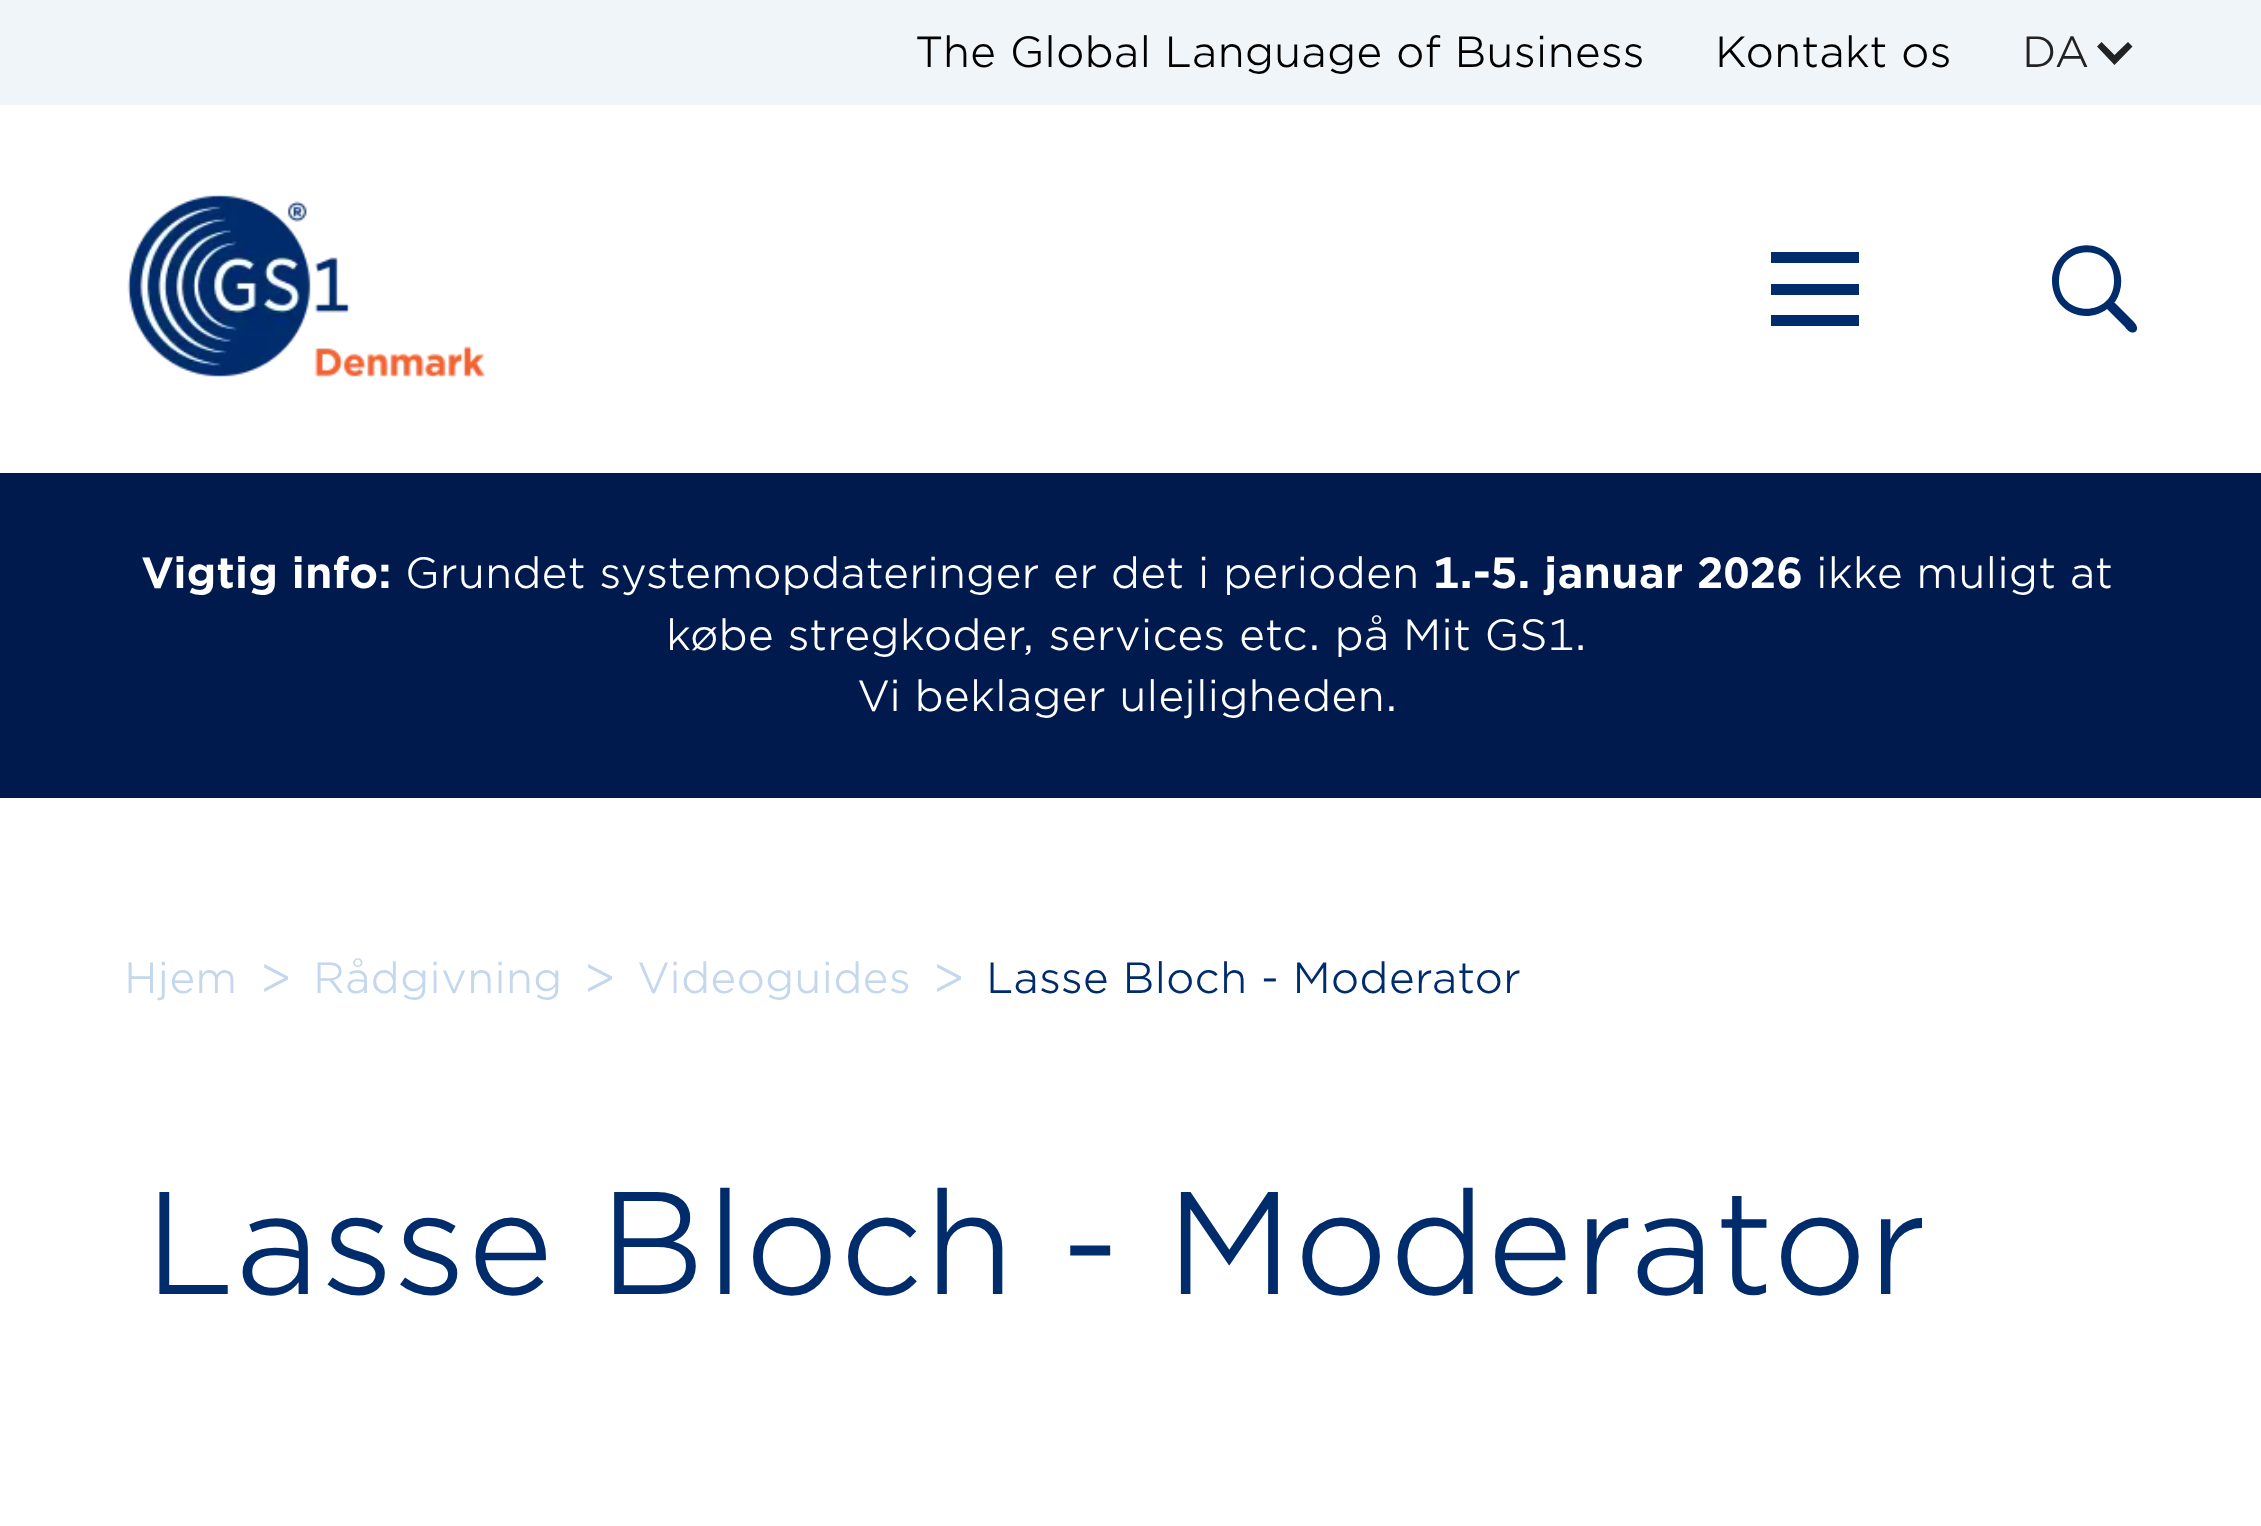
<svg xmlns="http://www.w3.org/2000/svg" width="2261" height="1526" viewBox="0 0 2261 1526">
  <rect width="100%" height="100%" fill="#fff"/>
  <path d="M0 0h2261v105H0z" fill="#f0f5fa"/>
  <path d="M2128 42L2114.5 55L2101.5 42L2097 46.5L2114.5 65L2132.5 46.5Z" fill="#222"/>
  <image x="127" y="194" width="358" height="183" href="img/1.png"/>
  <path d="M1771 252h88v11H1771z" fill="#002c6c"/>
  <path d="M1771 284h88v11H1771z" fill="#002c6c"/>
  <path d="M1771 315h88v11H1771z" fill="#002c6c"/>
  <path d="M2115 302C2125 287 2123 266 2109 254C2096 242 2075 242 2062 256C2049 269 2049 290 2060 304C2072 318 2093 320 2107 309L2125 327C2127 330 2131 334 2135 332C2140 328 2135 323 2132 320L2114 302ZM2114 281C2114 318 2059 318 2059 281C2059 243 2114 243 2114 280Z" fill="#002c6c"/>
  <path d="M0 473h2261v325H0z" fill="#001a4d"/>
  <g font-family="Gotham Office" font-size="42" fill="#000">
    <text x="915" y="67">The Global Language of Business</text>
    <text x="1715" y="67">Kontakt os</text>
  </g>
  <text x="2022" y="67" font-family="Gotham Office" font-size="42" fill="#222">DA</text>
  <text x="141" y="588" font-family="Gotham Office" font-size="42" font-weight="bold" fill="#fff">Vigtig info:</text>
  <text x="405" y="588" font-family="Gotham Office" font-size="42" fill="#fff">Grundet systemopdateringer er det i perioden</text>
  <text x="1433" y="588" font-family="Gotham Office" font-size="42" font-weight="bold" fill="#fff">1.-5. januar 2026</text>
  <g font-family="Gotham Office" font-size="42" fill="#fff">
    <text x="1816" y="588">ikke muligt at</text>
    <text x="666" y="650">købe stregkoder, services etc. på Mit GS1.</text>
    <text x="857" y="711">Vi beklager ulejligheden.</text>
  </g>
  <text x="124" y="993" font-family="Gotham Office" font-size="42" fill="#c4d7ed">Hjem</text>
  <text x="259" y="997" font-family="Gotham Office" font-size="52" fill="#c4d7ed">&gt;</text>
  <text x="313" y="993" font-family="Gotham Office" font-size="42" fill="#c4d7ed">Rådgivning</text>
  <text x="583" y="997" font-family="Gotham Office" font-size="52" fill="#c4d7ed">&gt;</text>
  <text x="637" y="993" font-family="Gotham Office" font-size="42" fill="#c4d7ed">Videoguides</text>
  <text x="932" y="997" font-family="Gotham Office" font-size="52" fill="#c4d7ed">&gt;</text>
  <text x="986" y="993" font-family="Gotham Office" font-size="42" fill="#002c6c">Lasse Bloch - Moderator</text>
  <text x="144" y="1294" font-family="Gotham Office" font-size="140" fill="#002c6c">Lasse Bloch - Moderator</text>
</svg>
